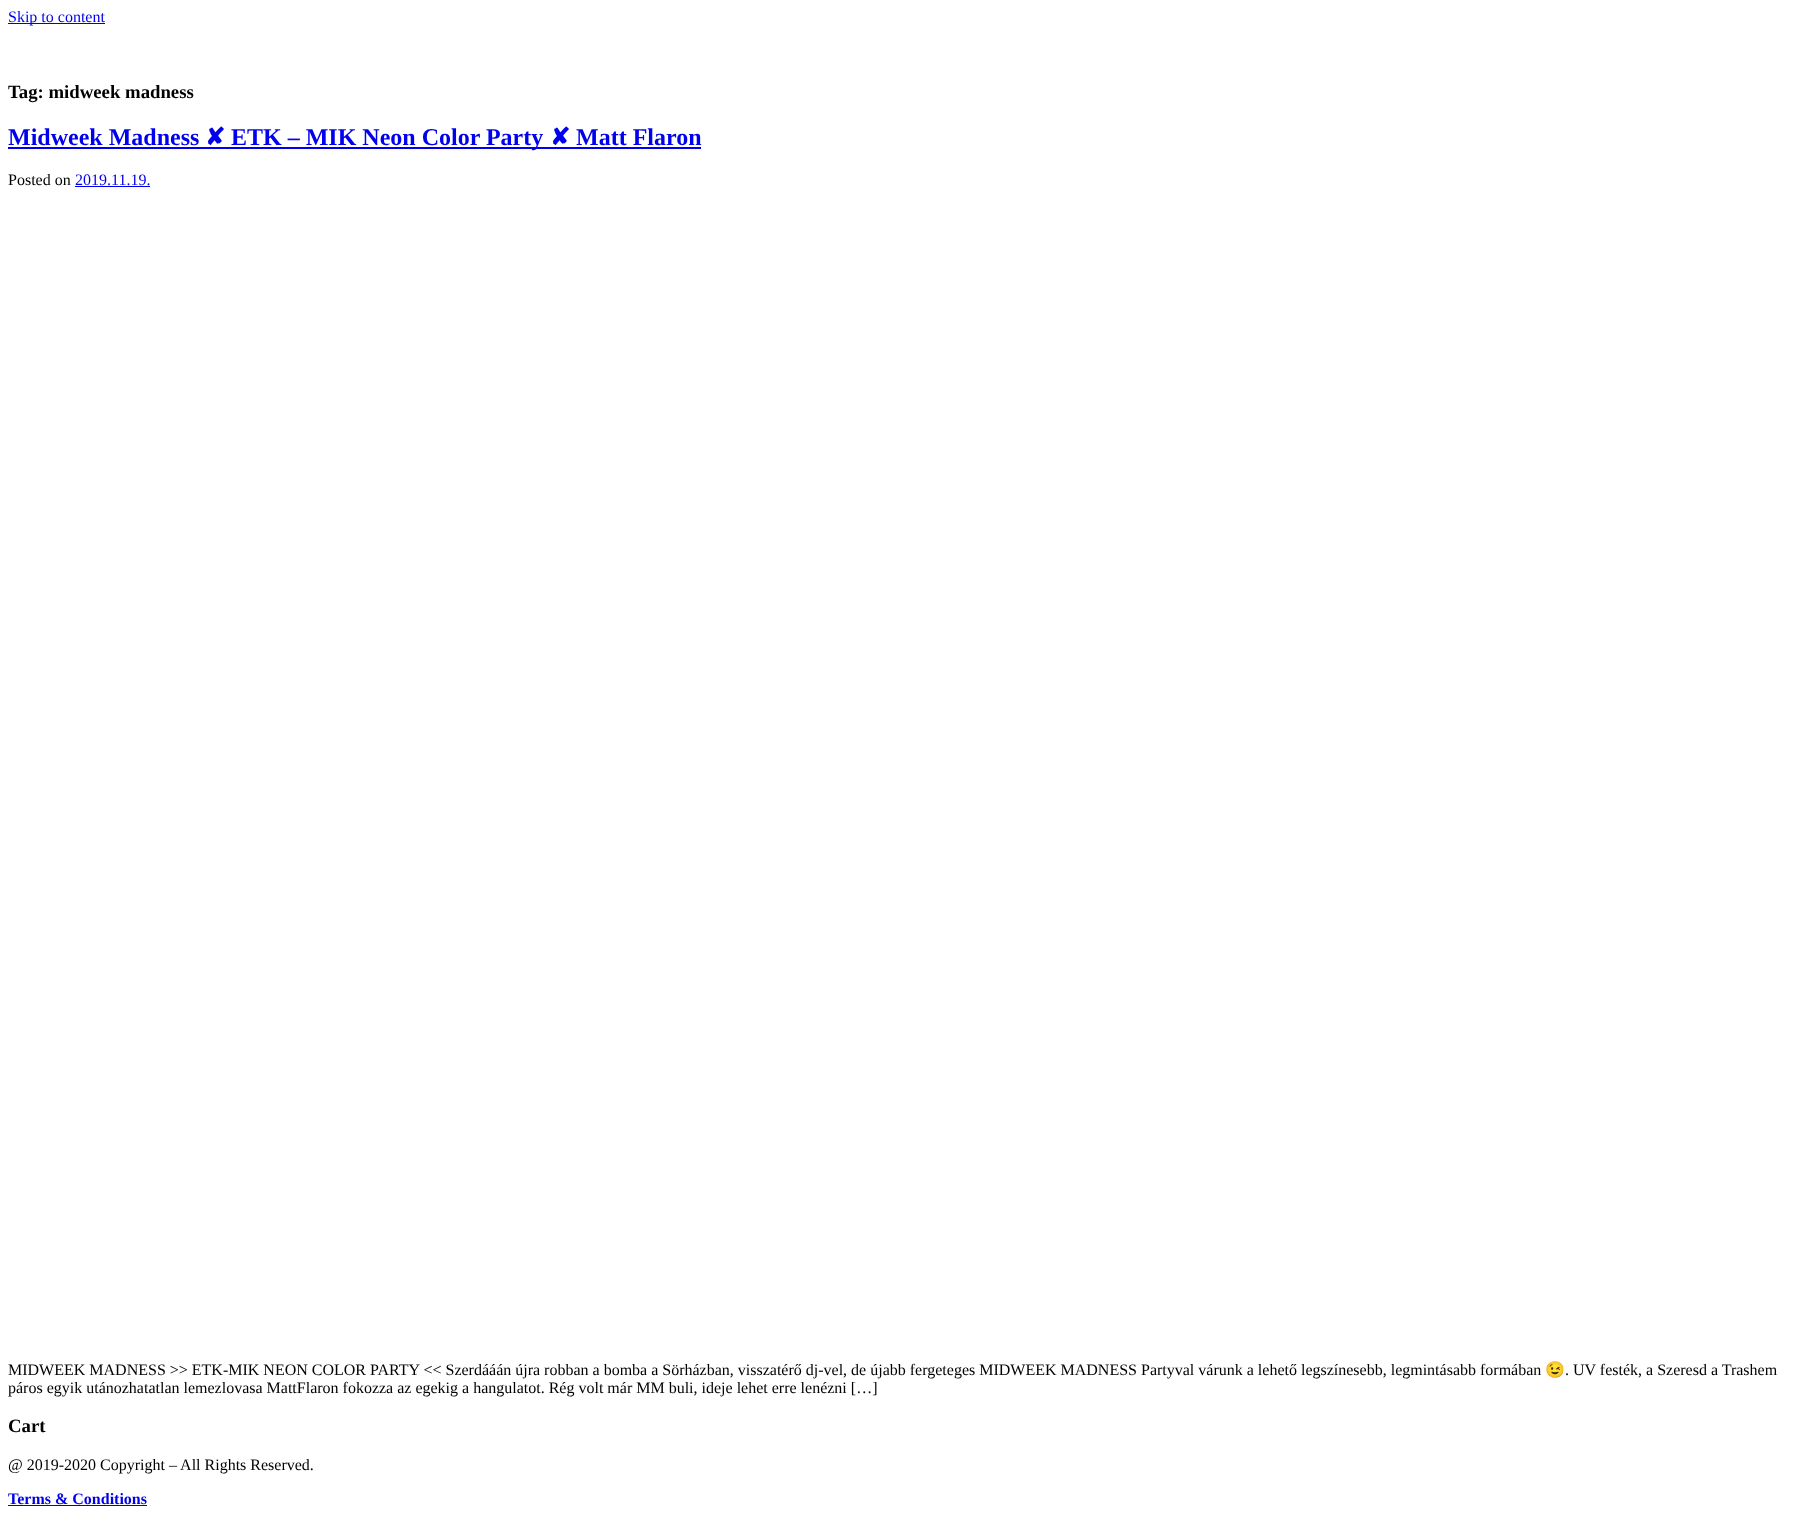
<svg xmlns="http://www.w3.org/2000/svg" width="1795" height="1531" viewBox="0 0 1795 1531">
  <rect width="100%" height="100%" fill="#fff"/>
  <path d="M8 23h97v1H8z" fill="#00e"/>
  <path d="M8 147h693v2H8z" fill="#00e"/>
  <path d="M75 186h75v1H75z" fill="#00e"/>
  <path d="M8 1505h139v1H8z" fill="#00e"/>
  <text x="8" y="22" font-family="Liberation Serif" font-size="16" fill="#00e">Skip to content</text>
  <text x="8" y="98" font-family="Liberation Serif" font-size="18.75" font-weight="bold" fill="#000">Tag: midweek madness</text>
  <text x="8" y="145" font-family="Liberation Serif" font-size="24" font-weight="bold" fill="#00e">Midweek Madness</text>
  <text x="205" y="145" font-family="DejaVu Sans" font-size="24" font-weight="bold" fill="#00e">✘</text>
  <text x="231" y="145" font-family="Liberation Serif" font-size="24" font-weight="bold" fill="#00e">ETK – MIK Neon Color Party</text>
  <text x="550" y="145" font-family="DejaVu Sans" font-size="24" font-weight="bold" fill="#00e">✘</text>
  <text x="576" y="145" font-family="Liberation Serif" font-size="24" font-weight="bold" fill="#00e">Matt Flaron</text>
  <text x="8" y="185" font-family="Liberation Serif" font-size="16" fill="#000">Posted on</text>
  <text x="75" y="185" font-family="Liberation Serif" font-size="16" fill="#00e">2019.11.19.</text>
  <text x="8" y="1375" font-family="Liberation Serif" font-size="16" fill="#000">MIDWEEK MADNESS &gt;&gt; ETK-MIK NEON COLOR PARTY &lt;&lt; Szerdááán újra robban a bomba a Sörházban, visszatérő dj-vel, de újabb fergeteges MIDWEEK MADNESS Partyval várunk a lehető legszínesebb, legmintásabb formában</text>
  <text x="1545" y="1375" font-family="Noto Color Emoji" font-size="16" fill="#000">😉</text>
  <g font-family="Liberation Serif" font-size="16" fill="#000">
    <text x="1565" y="1375">. UV festék, a Szeresd a Trashem</text>
    <text x="8" y="1393">páros egyik utánozhatatlan lemezlovasa MattFlaron fokozza az egekig a hangulatot. Rég volt már MM buli, ideje lehet erre lenézni […]</text>
  </g>
  <text x="8" y="1432" font-family="Liberation Serif" font-size="18.75" font-weight="bold" fill="#000">Cart</text>
  <text x="8" y="1470" font-family="Liberation Serif" font-size="16" fill="#000">@ 2019-2020 Copyright – All Rights Reserved.</text>
  <text x="8" y="1504" font-family="Liberation Serif" font-size="16" font-weight="bold" fill="#00e">Terms &amp; Conditions</text>
</svg>
